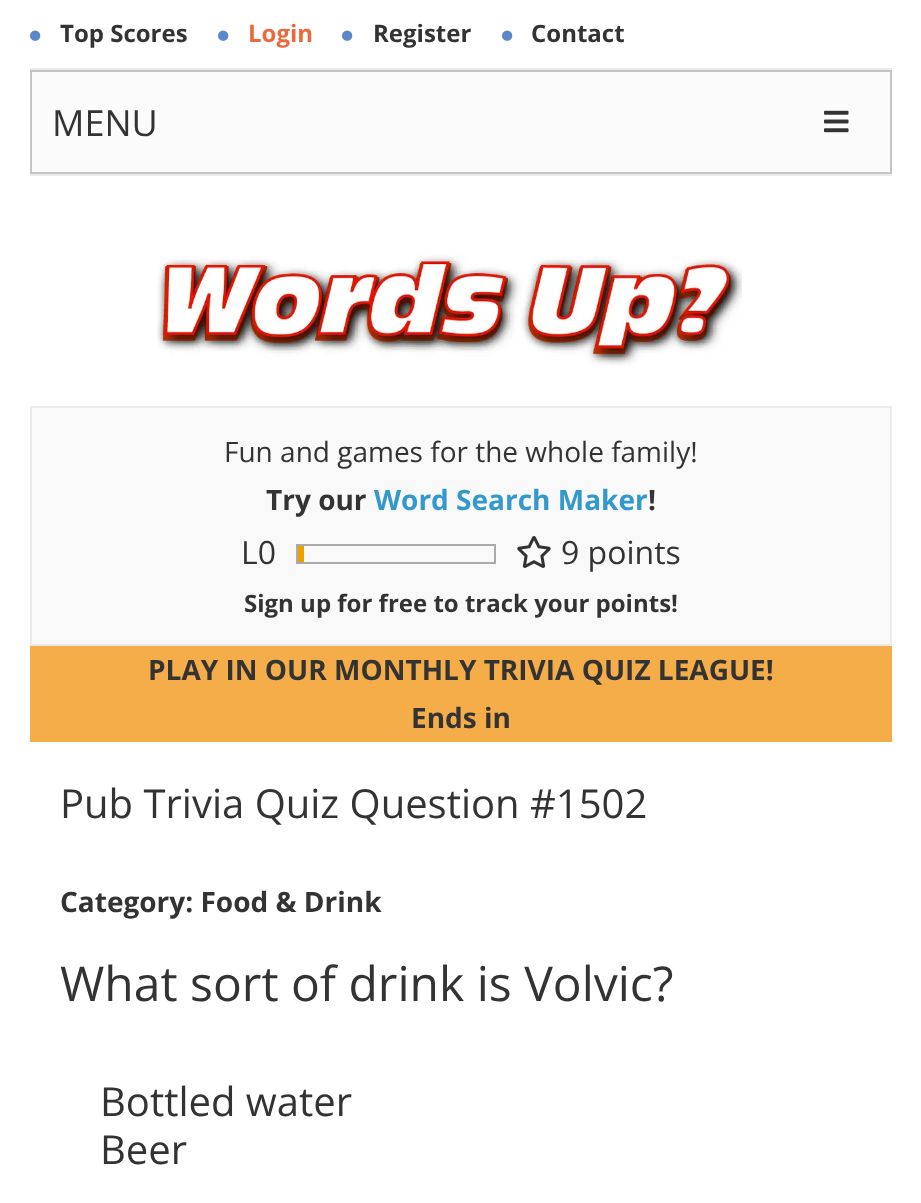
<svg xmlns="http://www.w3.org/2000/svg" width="921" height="1203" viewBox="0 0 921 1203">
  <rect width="100%" height="100%" fill="#fff"/>
  <image x="30" y="30" width="11" height="11" href="img/1.png"/>
  <image x="218" y="30" width="11" height="11" href="img/1.png"/>
  <image x="342" y="30" width="11" height="11" href="img/1.png"/>
  <image x="502" y="30" width="11" height="11" href="img/1.png"/>
  <path d="M30 68h862v2H30z" fill="#eaeaea"/>
  <path d="M30 174h862v2H30z" fill="#eaeaea"/>
  <path d="M31 71h860v102H31z" fill="#fbfbfb" stroke="#c4c4c4" stroke-width="2"/>
  <image x="824" y="110" width="25" height="23" href="img/2.png"/>
  <image x="157" y="254" width="585" height="112" href="img/3.png"/>
  <path d="M31 407h860v238H31z" fill="#f9f9f9" stroke="#eaeaea" stroke-width="2"/>
  <path d="M297 545h198v18H297z" fill="none" stroke="#aaa" stroke-width="2"/>
  <path d="M298 546h6v16H298z" fill="#ed9e00"/>
  <image x="517" y="536" width="34" height="32" href="img/4.png"/>
  <path d="M30 646h862v96H30z" fill="#f4ad49"/>
  <text x="60" y="42" font-family="Open Sans" font-size="24" font-weight="bold" fill="#333">Top Scores</text>
  <text x="248" y="42" font-family="Open Sans" font-size="24" font-weight="bold" fill="#ec693c">Login</text>
  <g font-family="Open Sans" font-size="24" font-weight="bold" fill="#333">
    <text x="373" y="42">Register</text>
    <text x="531" y="42">Contact</text>
  </g>
  <text x="52" y="136" font-family="Open Sans" font-size="36" fill="#333">MENU</text>
  <text x="224" y="462" font-family="Open Sans" font-size="28" fill="#333">Fun and games for the whole family!</text>
  <text x="266" y="510" font-family="Open Sans" font-size="28" font-weight="bold" fill="#333">Try our</text>
  <text x="374" y="510" font-family="Open Sans" font-size="28" font-weight="bold" fill="#39c">Word Search Maker</text>
  <text x="648" y="510" font-family="Open Sans" font-size="28" font-weight="bold" fill="#333">!</text>
  <g font-family="Open Sans" font-size="32" fill="#333">
    <text x="241" y="564">L0</text>
    <text x="561" y="564">9 points</text>
  </g>
  <text x="244" y="612" font-family="Open Sans" font-size="24" font-weight="bold" fill="#333">Sign up for free to track your points!</text>
  <g font-family="Open Sans" font-size="28" font-weight="bold" fill="#333">
    <text x="148" y="680">PLAY IN OUR MONTHLY TRIVIA QUIZ LEAGUE!</text>
    <text x="411" y="728">Ends in</text>
  </g>
  <text x="60" y="818" font-family="Open Sans" font-size="40" fill="#333">Pub Trivia Quiz Question #1502</text>
  <text x="60" y="912" font-family="Open Sans" font-size="28" font-weight="bold" fill="#333">Category: Food &amp; Drink</text>
  <text x="60" y="1001" font-family="Open Sans" font-size="48" fill="#333">What sort of drink is Volvic?</text>
  <g font-family="Open Sans" font-size="40" fill="#333">
    <text x="100" y="1116">Bottled water</text>
    <text x="100" y="1164">Beer</text>
  </g>
</svg>
